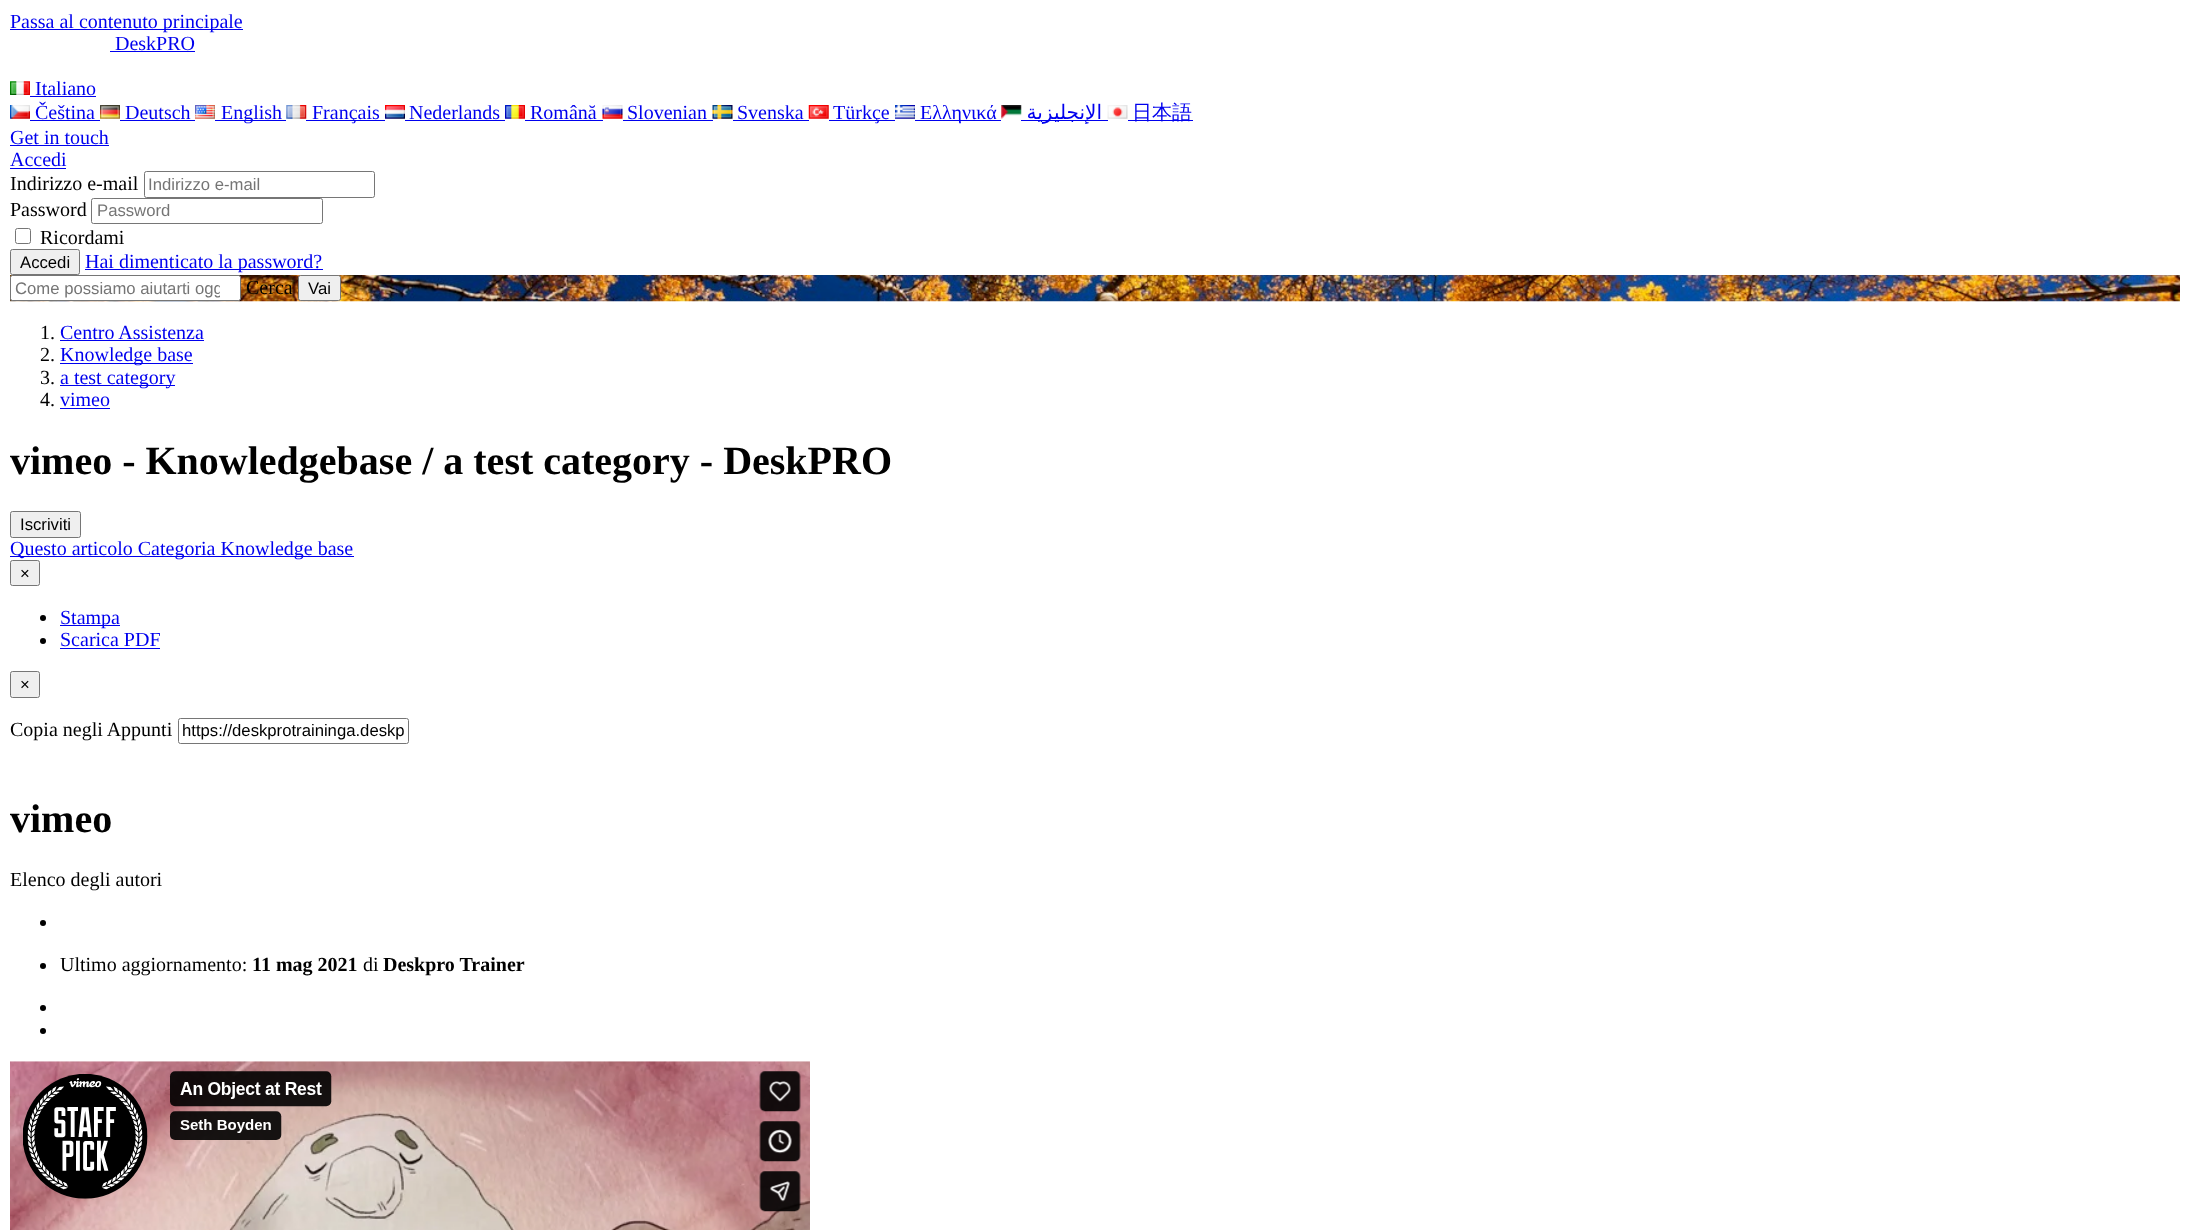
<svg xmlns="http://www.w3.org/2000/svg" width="2189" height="1230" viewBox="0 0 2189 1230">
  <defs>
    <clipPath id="clip1"><path d="M15 279h205v19H15z"/></clipPath>
  </defs>
  <rect width="100%" height="100%" fill="#fff"/>
  <path d="M10 29h233v1H10z" fill="#00e"/>
  <path d="M110 51h85v1H110z" fill="#00e"/>
  <image x="10" y="81" width="20" height="14" href="img/1.png"/>
  <path d="M30 96h66v1H30z" fill="#00e"/>
  <image x="10" y="105" width="20" height="14" href="img/2.png"/>
  <path d="M30 120h70v1H30z" fill="#00e"/>
  <image x="100" y="105" width="20" height="14" href="img/3.png"/>
  <path d="M120 120h75v1H120z" fill="#00e"/>
  <image x="195" y="105" width="20" height="14" href="img/4.png"/>
  <path d="M215 120h66v1H215z" fill="#00e"/>
  <path d="M281 120h5v1H281z" fill="#00e"/>
  <image x="286" y="105" width="21" height="14" href="img/5.png"/>
  <path d="M306 120h79v1H306z" fill="#00e"/>
  <image x="385" y="105" width="20" height="14" href="img/6.png"/>
  <path d="M405 120h100v1H405z" fill="#00e"/>
  <image x="505" y="105" width="20" height="14" href="img/7.png"/>
  <path d="M525 120h78v1H525z" fill="#00e"/>
  <image x="602" y="105" width="21" height="14" href="img/8.png"/>
  <path d="M623 120h90v1H623z" fill="#00e"/>
  <image x="712" y="105" width="21" height="14" href="img/9.png"/>
  <path d="M733 120h76v1H733z" fill="#00e"/>
  <image x="808" y="105" width="21" height="14" href="img/10.png"/>
  <path d="M829 120h66v1H829z" fill="#00e"/>
  <image x="895" y="105" width="20" height="14" href="img/11.png"/>
  <path d="M915 120h81v1H915z" fill="#00e"/>
  <path d="M996 120h5v1H996z" fill="#00e"/>
  <image x="1001" y="105" width="21" height="14" href="img/12.png"/>
  <path d="M1021 120h87v1H1021z" fill="#00e"/>
  <image x="1107" y="105" width="21" height="14" href="img/13.png"/>
  <path d="M1128 120h65v1H1128z" fill="#00e"/>
  <path d="M10 145h99v1H10z" fill="#00e"/>
  <path d="M10 168h56v1H10z" fill="#00e"/>
  <rect x="144.5" y="171.5" width="230" height="26" rx="2" fill="none" stroke="#767676"/>
  <rect x="91.5" y="198.5" width="231" height="25" rx="2" fill="none" stroke="#767676"/>
  <rect x="15.5" y="228.5" width="15" height="15" rx="2" fill="none" stroke="#767676"/>
  <rect x="10.5" y="249.5" width="69" height="25" rx="2" fill="#efefef" stroke="#767676"/>
  <path d="M85 269h238v1H85z" fill="#00e"/>
  <image x="10" y="275" width="2170" height="27" href="img/14.png"/>
  <rect x="10.5" y="275.5" width="230" height="25" rx="2" fill="#fff" stroke="#767676"/>
  <rect x="298.5" y="275.5" width="42" height="25" rx="2" fill="#efefef" stroke="#767676"/>
  <path d="M60 340h144v1H60z" fill="#00e"/>
  <path d="M60 363h133v1H60z" fill="#00e"/>
  <path d="M60 385h115v1H60z" fill="#00e"/>
  <path d="M60 408h50v1H60z" fill="#00e"/>
  <rect x="10.5" y="511.5" width="70" height="26" rx="2" fill="#efefef" stroke="#767676"/>
  <path d="M10 556h344v1H10z" fill="#00e"/>
  <rect x="10.5" y="560.5" width="29" height="25" rx="2" fill="#efefef" stroke="#767676"/>
  <circle cx="43" cy="618" r="3" fill="#000"/>
  <path d="M60 625h60v1H60z" fill="#00e"/>
  <circle cx="43" cy="641" r="3" fill="#000"/>
  <path d="M60 648h100v1H60z" fill="#00e"/>
  <rect x="10.5" y="671.5" width="29" height="26" rx="2" fill="#efefef" stroke="#767676"/>
  <rect x="178.5" y="718.5" width="230" height="25" rx="2" fill="none" stroke="#767676"/>
  <circle cx="43" cy="923" r="3" fill="#000"/>
  <circle cx="43" cy="966" r="3" fill="#000"/>
  <circle cx="43" cy="1008" r="3" fill="#000"/>
  <circle cx="43" cy="1031" r="3" fill="#000"/>
  <image x="10" y="1061" width="800" height="169" href="img/15.png"/>
  <g font-family="Liberation Serif" font-size="20" fill="#00e">
    <text x="10" y="28">Passa al contenuto principale</text>
    <text x="115" y="50">DeskPRO</text>
    <text x="35" y="95">Italiano</text>
    <text x="35" y="119">Čeština</text>
    <text x="125" y="119">Deutsch</text>
    <text x="221" y="119">English</text>
    <text x="312" y="119">Français</text>
    <text x="409" y="119">Nederlands</text>
    <text x="530" y="119">Română</text>
    <text x="627" y="119">Slovenian</text>
    <text x="737" y="119">Svenska</text>
    <text x="833" y="119">Türkçe</text>
    <text x="920" y="119">Ελληνικά</text>
  </g>
  <text x="1102" y="119" font-family="DejaVu Sans" font-size="20" direction="rtl" fill="#00e">الإنجليزية</text>
  <text x="1132" y="119" font-family="WenQuanYi Zen Hei" font-size="20" font-weight="500" fill="#00e">日本語</text>
  <g font-family="Liberation Serif" font-size="20" fill="#00e">
    <text x="10" y="144">Get in touch</text>
    <text x="10" y="166">Accedi</text>
  </g>
  <text x="10" y="190" font-family="Liberation Serif" font-size="20" fill="#000">Indirizzo e-mail</text>
  <text x="148" y="190" font-family="Liberation Sans" font-size="16.7" fill="#757575">Indirizzo e-mail</text>
  <text x="10" y="216" font-family="Liberation Serif" font-size="20" fill="#000">Password</text>
  <text x="97" y="216" font-family="Liberation Sans" font-size="16.7" fill="#757575">Password</text>
  <text x="40" y="244" font-family="Liberation Serif" font-size="20" fill="#000">Ricordami</text>
  <text x="20" y="268" font-family="Liberation Sans" font-size="16.7" fill="#000">Accedi</text>
  <text x="85" y="268" font-family="Liberation Serif" font-size="20" fill="#00e">Hai dimenticato la password?</text>
  <g clip-path="url(#clip1)">
    <text x="15" y="294" font-family="Liberation Sans" font-size="16.7" fill="#757575">Come possiamo aiutarti ogg</text>
  </g>
  <text x="246" y="294" font-family="Liberation Serif" font-size="20" fill="#000">Cerca</text>
  <text x="308" y="294" font-family="Liberation Sans" font-size="16.7" fill="#000">Vai</text>
  <text x="40" y="339" font-family="Liberation Serif" font-size="20" fill="#000">1.</text>
  <text x="60" y="339" font-family="Liberation Serif" font-size="20" fill="#00e">Centro Assistenza</text>
  <text x="40" y="361" font-family="Liberation Serif" font-size="20" fill="#000">2.</text>
  <text x="60" y="361" font-family="Liberation Serif" font-size="20" fill="#00e">Knowledge base</text>
  <text x="40" y="384" font-family="Liberation Serif" font-size="20" fill="#000">3.</text>
  <text x="60" y="384" font-family="Liberation Serif" font-size="20" fill="#00e">a test category</text>
  <text x="40" y="406" font-family="Liberation Serif" font-size="20" fill="#000">4.</text>
  <text x="60" y="406" font-family="Liberation Serif" font-size="20" fill="#00e">vimeo</text>
  <text x="10" y="474" font-family="Liberation Serif" font-size="40" font-weight="bold" fill="#000">vimeo - Knowledgebase / a test category - DeskPRO</text>
  <text x="20" y="530" font-family="Liberation Sans" font-size="16.7" fill="#000">Iscriviti</text>
  <text x="10" y="555" font-family="Liberation Serif" font-size="20" fill="#00e">Questo articolo Categoria Knowledge base</text>
  <text x="20" y="579" font-family="Liberation Sans" font-size="16.7" fill="#000">×</text>
  <g font-family="Liberation Serif" font-size="20" fill="#00e">
    <text x="60" y="624">Stampa</text>
    <text x="60" y="646">Scarica PDF</text>
  </g>
  <text x="20" y="690" font-family="Liberation Sans" font-size="16.7" fill="#000">×</text>
  <text x="10" y="736" font-family="Liberation Serif" font-size="20" fill="#000">Copia negli Appunti</text>
  <text x="182" y="736" font-family="Liberation Sans" font-size="16.7" fill="#000">https://deskprotraininga.deskp</text>
  <text x="10" y="832" font-family="Liberation Serif" font-size="40" font-weight="bold" fill="#000">vimeo</text>
  <g font-family="Liberation Serif" font-size="20" fill="#000">
    <text x="10" y="886">Elenco degli autori</text>
    <text x="60" y="971">Ultimo aggiornamento:</text>
  </g>
  <text x="252" y="971" font-family="Liberation Serif" font-size="20" font-weight="bold" fill="#000">11 mag 2021</text>
  <text x="363" y="971" font-family="Liberation Serif" font-size="20" fill="#000">di</text>
  <text x="383" y="971" font-family="Liberation Serif" font-size="20" font-weight="bold" fill="#000">Deskpro Trainer</text>
</svg>
